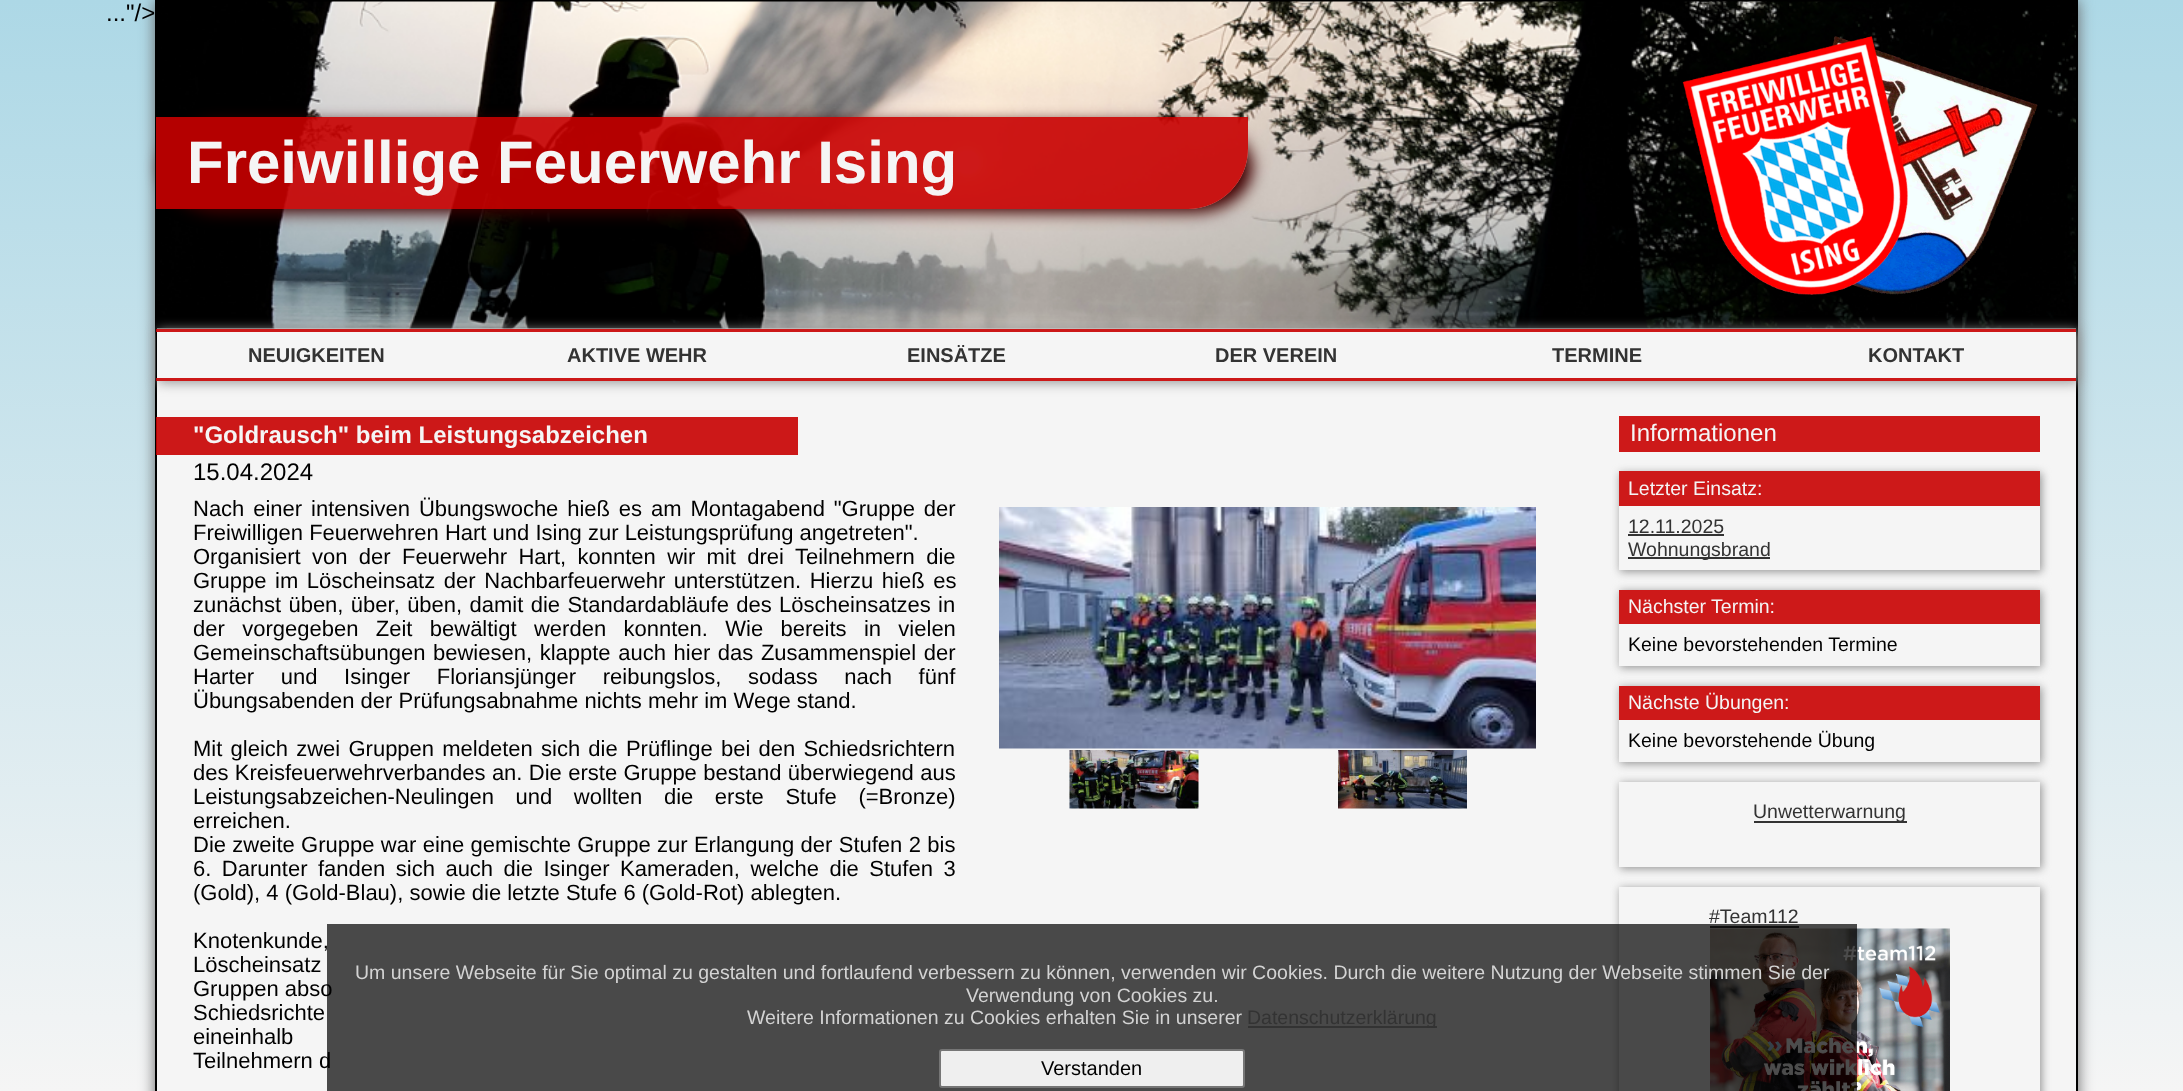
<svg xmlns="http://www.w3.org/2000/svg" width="2183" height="1091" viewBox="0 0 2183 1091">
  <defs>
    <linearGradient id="g1" gradientUnits="userSpaceOnUse" x1="1092" y1="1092" x2="1092" y2="0"><stop offset="0" stop-color="#f5f5f5"/><stop offset="1" stop-color="#add8e6"/></linearGradient>
    <clipPath id="clip1"><path d="M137 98H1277V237H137ZM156 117H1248V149C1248 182 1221 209 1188 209H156Z" clip-rule="evenodd"/></clipPath>
    <clipPath id="clip2"><path d="M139 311H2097V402H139ZM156 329H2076V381H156Z" clip-rule="evenodd"/></clipPath>
    <clipPath id="clip3"><path d="M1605 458H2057V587H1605ZM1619 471H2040V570H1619Z" clip-rule="evenodd"/></clipPath>
    <clipPath id="clip4"><path d="M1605 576H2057V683H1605ZM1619 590H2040V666H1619Z" clip-rule="evenodd"/></clipPath>
    <clipPath id="clip5"><path d="M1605 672H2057V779H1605ZM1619 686H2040V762H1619Z" clip-rule="evenodd"/></clipPath>
    <clipPath id="clip6"><path d="M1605 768H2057V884H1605ZM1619 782H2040V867H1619Z" clip-rule="evenodd"/></clipPath>
    <clipPath id="clip7"><path d="M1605 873H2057V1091H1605ZM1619 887H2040V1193H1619Z" clip-rule="evenodd"/></clipPath>
  </defs>
  <rect width="100%" height="100%" fill="#fff"/>
  <path d="M0 0h2183v1091H0z" fill="url(#g1)"/>
  <path d="M155 0h1923v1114H155z" fill="#666" filter="blur(7.5px)"/>
  <path d="M157 328h1919v763H157z" fill="#f5f5f5"/>
  <path d="M156 1h1921v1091H156z" fill="none" stroke="#000" stroke-width="2"/>
  <image x="157" y="1" width="1919" height="328" href="img/1.png"/>
  <g clip-path="url(#clip1)">
    <rect x="161" y="122" width="1092" height="91" rx="60" fill="#400000" filter="blur(7.5px)"/>
  </g>
  <path d="M156 117H1248V149C1248 182 1221 209 1188 209H156Z" fill="#c80000e6"/>
  <image x="1682" y="36" width="356" height="259" href="img/2.png"/>
  <g clip-path="url(#clip2)">
    <path d="M158 330h1920v53H158z" fill="#999" filter="blur(6px)"/>
  </g>
  <path d="M156 329h1920v3H156z" fill="#c80000e6"/>
  <path d="M156 378h1920v3H156z" fill="#c80000e6"/>
  <path d="M156 417h642v38H156z" fill="#c80000e6"/>
  <image x="999" y="507" width="537" height="242" href="img/3.png"/>
  <image x="1069" y="750" width="130" height="59" href="img/4.png"/>
  <image x="1338" y="750" width="129" height="59" href="img/5.png"/>
  <path d="M1619 416h421v36H1619z" fill="#cd1919"/>
  <g clip-path="url(#clip3)">
    <path d="M1620 473h422v99H1620z" fill="#999" filter="blur(4.5px)"/>
  </g>
  <path d="M1619 471h421v35H1619z" fill="#cd1919"/>
  <path d="M1628 534h96v2H1628z" fill="#333"/>
  <path d="M1628 557h142v2H1628z" fill="#333"/>
  <g clip-path="url(#clip4)">
    <path d="M1620 591h422v77H1620z" fill="#999" filter="blur(4.5px)"/>
  </g>
  <path d="M1619 590h421v34H1619z" fill="#cd1919"/>
  <g clip-path="url(#clip5)">
    <path d="M1620 687h422v77H1620z" fill="#999" filter="blur(4.5px)"/>
  </g>
  <path d="M1619 686h421v34H1619z" fill="#cd1919"/>
  <g clip-path="url(#clip6)">
    <path d="M1620 783h422v86H1620z" fill="#999" filter="blur(4.5px)"/>
  </g>
  <path d="M1754 821h153v2H1754z" fill="#333"/>
  <g clip-path="url(#clip7)">
    <path d="M1620 888h422v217H1620z" fill="#999" filter="blur(4.5px)"/>
  </g>
  <path d="M1710 926h89v2H1710z" fill="#333"/>
  <image x="1710" y="928" width="240" height="163" href="img/6.png"/>
  <text x="106" y="21" font-family="Liberation Sans" font-size="24" fill="#000">..."/&gt;</text>
  <text x="187" y="183" font-family="Liberation Sans" font-size="60" font-weight="bold" fill="#f5f5f5">Freiwillige Feuerwehr Ising</text>
  <g font-family="Liberation Sans" font-size="20" font-weight="bold" fill="#333">
    <text x="248" y="362">NEUIGKEITEN</text>
    <text x="567" y="362">AKTIVE WEHR</text>
    <text x="907" y="362">EINSÄTZE</text>
    <text x="1215" y="362">DER VEREIN</text>
    <text x="1552" y="362">TERMINE</text>
    <text x="1868" y="362">KONTAKT</text>
  </g>
  <text x="193" y="443" font-family="Liberation Sans" font-size="24" font-weight="bold" fill="#f5f5f5">"Goldrausch" beim Leistungsabzeichen</text>
  <text x="193" y="480" font-family="Liberation Sans" font-size="24" fill="#000">15.04.2024</text>
  <g font-family="Liberation Sans" font-size="22" fill="#000">
    <text x="193" y="516" word-spacing="2.75">Nach einer intensiven Übungswoche hieß es am Montagabend "Gruppe der</text>
    <text x="193" y="540">Freiwilligen Feuerwehren Hart und Ising zur Leistungsprüfung angetreten".</text>
    <text x="193" y="564" word-spacing="5.25">Organisiert von der Feuerwehr Hart, konnten wir mit drei Teilnehmern die</text>
    <text x="193" y="588" word-spacing="2.5">Gruppe im Löscheinsatz der Nachbarfeuerwehr unterstützen. Hierzu hieß es</text>
    <text x="193" y="612" word-spacing="1.25">zunächst üben, über, üben, damit die Standardabläufe des Löscheinsatzes in</text>
    <text x="193" y="636" word-spacing="11.25">der vorgegeben Zeit bewältigt werden konnten. Wie bereits in vielen</text>
    <text x="193" y="660" word-spacing="1.5">Gemeinschaftsübungen bewiesen, klappte auch hier das Zusammenspiel der</text>
    <text x="193" y="684" word-spacing="20.5">Harter und Isinger Floriansjünger reibungslos, sodass nach fünf</text>
    <text x="193" y="708">Übungsabenden der Prüfungsabnahme nichts mehr im Wege stand.</text>
    <text x="193" y="756" word-spacing="2.1">Mit gleich zwei Gruppen meldeten sich die Prüflinge bei den Schiedsrichtern</text>
    <text x="193" y="780" word-spacing="0.25">des Kreisfeuerwehrverbandes an. Die erste Gruppe bestand überwiegend aus</text>
    <text x="193" y="804" word-spacing="15.5">Leistungsabzeichen-Neulingen und wollten die erste Stufe (=Bronze)</text>
    <text x="193" y="828">erreichen.</text>
    <text x="193" y="852" word-spacing="0.25">Die zweite Gruppe war eine gemischte Gruppe zur Erlangung der Stufen 2 bis</text>
    <text x="193" y="876" word-spacing="4.4">6. Darunter fanden sich auch die Isinger Kameraden, welche die Stufen 3</text>
    <text x="193" y="900">(Gold), 4 (Gold-Blau), sowie die letzte Stufe 6 (Gold-Rot) ablegten.</text>
    <text x="193" y="948" word-spacing="20">Knotenkunde,</text>
    <text x="193" y="972" word-spacing="4">Löscheinsatz</text>
    <text x="193" y="996">Gruppen abso</text>
    <text x="193" y="1020" word-spacing="8">Schiedsrichte</text>
    <text x="193" y="1044" word-spacing="21">eineinhalb</text>
    <text x="193" y="1068">Teilnehmern d</text>
  </g>
  <text x="1630" y="441" font-family="Liberation Sans" font-size="24" fill="#f5f5f5">Informationen</text>
  <text x="1628" y="495" font-family="Liberation Sans" font-size="19.5" fill="#f5f5f5">Letzter Einsatz:</text>
  <g font-family="Liberation Sans" font-size="19.5" fill="#333">
    <text x="1628" y="533">12.11.2025</text>
    <text x="1628" y="556">Wohnungsbrand</text>
  </g>
  <text x="1628" y="613" font-family="Liberation Sans" font-size="19.5" fill="#f5f5f5">Nächster Termin:</text>
  <text x="1628" y="651" font-family="Liberation Sans" font-size="19.5" fill="#000">Keine bevorstehenden Termine</text>
  <text x="1628" y="709" font-family="Liberation Sans" font-size="19.5" fill="#f5f5f5">Nächste Übungen:</text>
  <text x="1628" y="747" font-family="Liberation Sans" font-size="19.5" fill="#000">Keine bevorstehende Übung</text>
  <g font-family="Liberation Sans" font-size="19.5" fill="#333">
    <text x="1753" y="818">Unwetterwarnung</text>
    <text x="1709" y="923">#Team112</text>
  </g>
  <path d="M327 924h1530v167H327z" fill="#000000b3"/>
  <g font-family="Liberation Sans" font-size="19.5" fill="#d3d3d3">
    <text x="355" y="979">Um unsere Webseite für Sie optimal zu gestalten und fortlaufend verbessern zu können, verwenden wir Cookies. Durch die weitere Nutzung der Webseite stimmen Sie der</text>
    <text x="966" y="1002">Verwendung von Cookies zu.</text>
    <text x="747" y="1024">Weitere Informationen zu Cookies erhalten Sie in unserer</text>
  </g>
  <path d="M1248 1026h189v2H1248z" fill="#333"/>
  <text x="1247" y="1024" font-family="Liberation Sans" font-size="19.5" fill="#333">Datenschutzerklärung</text>
  <rect x="940" y="1050" width="304" height="37" rx="2" fill="#efefef" stroke="#767676" stroke-width="2"/>
  <text x="1041" y="1075" font-family="Liberation Sans" font-size="20" fill="#000">Verstanden</text>
</svg>
